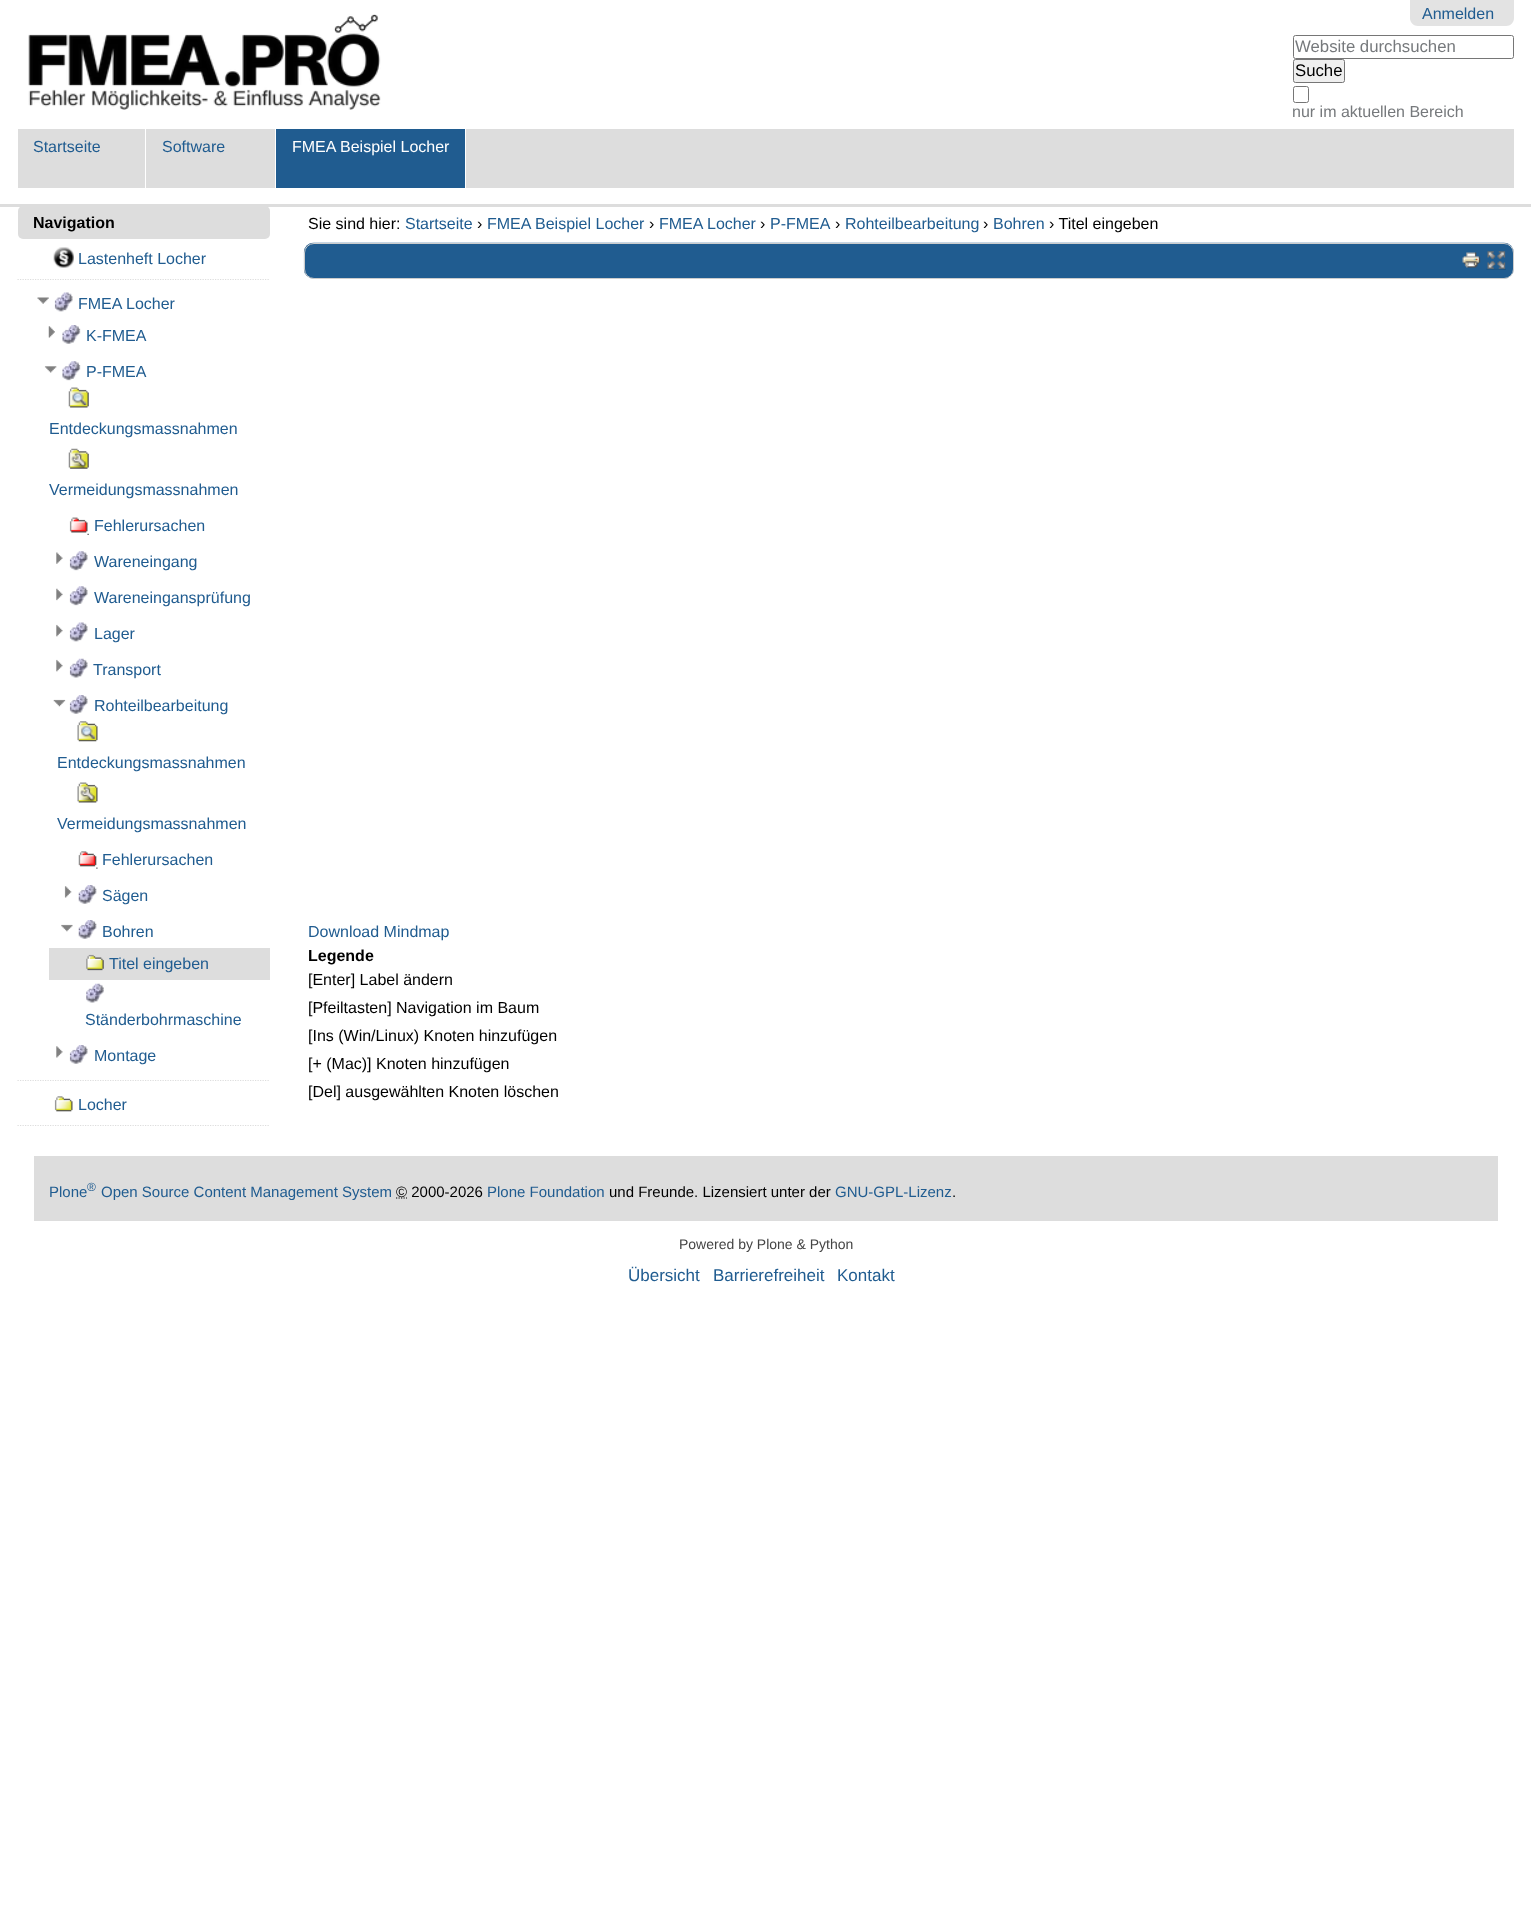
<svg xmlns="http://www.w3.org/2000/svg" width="1531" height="1924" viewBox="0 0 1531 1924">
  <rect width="100%" height="100%" fill="#fff"/>
  <image x="28" y="14" width="353" height="96" href="img/1.png"/>
  <path d="M1410 0H1514V18C1514 22.5 1510.5 26 1506 26H1418C1413.5 26 1410 22.5 1410 18Z" fill="#e3e3e3"/>
  <rect x="1293.5" y="35.5" width="220" height="23" rx="2" fill="none" stroke="#767676"/>
  <rect x="1293.5" y="59.5" width="51" height="23" rx="2" fill="#efefef" stroke="#767676"/>
  <rect x="1293.5" y="86.5" width="15" height="16" rx="2" fill="none" stroke="#767676"/>
  <path d="M18 129h1496v59H18z" fill="#ddd"/>
  <path d="M145 129h1v59H145z" fill="#fff"/>
  <path d="M275 129h1v59H275z" fill="#fff"/>
  <path d="M276 129h189v59H276z" fill="#205c90"/>
  <path d="M465 129h1v59H465z" fill="#fff"/>
  <path d="M0 204h1531v3H0z" fill="#ddd"/>
  <rect x="18" y="206" width="252" height="33" rx="5" fill="#ddd"/>
  <path d="M17.5 279.5H270" fill="none" stroke="#ddd" stroke-width="1.2" stroke-dasharray="1.25 1.25"/>
  <image x="53" y="247" width="21" height="21" href="img/2.png"/>
  <path d="M17.5 1080.5H270" fill="none" stroke="#ddd" stroke-width="1.2" stroke-dasharray="1.25 1.25"/>
  <image x="37" y="297" width="12" height="7" href="img/3.png"/>
  <image x="54" y="292" width="19" height="20" href="img/4.png"/>
  <image x="48" y="326" width="7" height="12" href="img/5.png"/>
  <image x="62" y="325" width="19" height="19" href="img/6.png"/>
  <image x="44" y="366" width="13" height="7" href="img/7.png"/>
  <image x="62" y="361" width="19" height="20" href="img/8.png"/>
  <image x="68" y="387" width="21" height="21" href="img/9.png"/>
  <image x="68" y="448" width="21" height="21" href="img/10.png"/>
  <image x="69" y="517" width="20" height="18" href="img/11.png"/>
  <image x="56" y="552" width="7" height="12" href="img/12.png"/>
  <image x="69" y="551" width="19" height="20" href="img/13.png"/>
  <image x="56" y="588" width="7" height="13" href="img/14.png"/>
  <image x="69" y="586" width="19" height="20" href="img/15.png"/>
  <image x="56" y="624" width="7" height="13" href="img/16.png"/>
  <image x="69" y="622" width="19" height="20" href="img/17.png"/>
  <image x="56" y="659" width="7" height="13" href="img/16.png"/>
  <image x="69" y="658" width="19" height="20" href="img/18.png"/>
  <image x="53" y="699" width="13" height="8" href="img/19.png"/>
  <image x="69" y="695" width="19" height="19" href="img/20.png"/>
  <image x="77" y="721" width="21" height="21" href="img/21.png"/>
  <image x="77" y="782" width="21" height="21" href="img/22.png"/>
  <image x="78" y="851" width="20" height="18" href="img/23.png"/>
  <image x="64" y="886" width="8" height="12" href="img/24.png"/>
  <image x="78" y="885" width="19" height="19" href="img/25.png"/>
  <image x="61" y="924" width="12" height="8" href="img/26.png"/>
  <image x="78" y="920" width="19" height="19" href="img/25.png"/>
  <path d="M49 948h221v32H49z" fill="#ddd"/>
  <image x="86" y="954" width="18" height="17" href="img/27.png"/>
  <image x="86" y="983" width="18" height="20" href="img/28.png"/>
  <image x="56" y="1046" width="7" height="12" href="img/29.png"/>
  <image x="69" y="1045" width="19" height="19" href="img/20.png"/>
  <path d="M17.5 1125.5H270" fill="none" stroke="#ddd" stroke-width="1.2" stroke-dasharray="1.25 1.25"/>
  <image x="54" y="1096" width="19" height="16" href="img/30.png"/>
  <image x="303" y="242" width="1211" height="37" href="img/31.png"/>
  <rect x="304.5" y="243.5" width="1209" height="35" rx="9.5" fill="none" stroke="#ccc"/>
  <image x="1462" y="252" width="19" height="16" href="img/32.png"/>
  <image x="1486" y="251" width="20" height="19" href="img/33.png"/>
  <path d="M34 1156h1464v65H34z" fill="#ddd"/>
  <path d="M396 1198H407" fill="none" stroke="#000" stroke-width="1.2" stroke-dasharray="1.25 1.25"/>
  <text x="1422" y="19" font-family="Liberation Sans" font-size="16" fill="#205c90">Anmelden</text>
  <text x="1295" y="52" font-family="Liberation Sans" font-size="16.75" fill="#76797c">Website durchsuchen</text>
  <text x="1295" y="76" font-family="Liberation Sans" font-size="16.75" fill="#000">Suche</text>
  <text x="1292" y="117" font-family="Liberation Sans" font-size="16" fill="#76797c">nur im aktuellen Bereich</text>
  <g font-family="Liberation Sans" font-size="16" fill="#205c90">
    <text x="33" y="152">Startseite</text>
    <text x="162" y="152">Software</text>
  </g>
  <text x="292" y="152" font-family="Liberation Sans" font-size="16" fill="#fff">FMEA Beispiel Locher</text>
  <text x="33" y="228" font-family="Liberation Sans" font-size="16" font-weight="bold" fill="#000">Navigation</text>
  <g font-family="Liberation Sans" font-size="16" fill="#205c90">
    <text x="78" y="264">Lastenheft Locher</text>
    <text x="78" y="309">FMEA Locher</text>
    <text x="86" y="341">K-FMEA</text>
    <text x="86" y="377">P-FMEA</text>
    <text x="49" y="434">Entdeckungsmassnahmen</text>
    <text x="49" y="495">Vermeidungsmassnahmen</text>
    <text x="94" y="531">Fehlerursachen</text>
    <text x="94" y="567">Wareneingang</text>
    <text x="94" y="603">Wareneingansprüfung</text>
    <text x="94" y="639">Lager</text>
    <text x="93" y="675">Transport</text>
    <text x="94" y="711">Rohteilbearbeitung</text>
    <text x="57" y="768">Entdeckungsmassnahmen</text>
    <text x="57" y="829">Vermeidungsmassnahmen</text>
    <text x="102" y="865">Fehlerursachen</text>
    <text x="102" y="901">Sägen</text>
    <text x="102" y="937">Bohren</text>
    <text x="109" y="969">Titel eingeben</text>
    <text x="85" y="1025">Ständerbohrmaschine</text>
    <text x="94" y="1061">Montage</text>
    <text x="78" y="1110">Locher</text>
  </g>
  <text x="308" y="229" font-family="Liberation Sans" font-size="16" fill="#000">Sie sind hier:</text>
  <text x="405" y="229" font-family="Liberation Sans" font-size="16" fill="#205c90">Startseite</text>
  <text x="477" y="229" font-family="Liberation Sans" font-size="16" fill="#000">›</text>
  <text x="487" y="229" font-family="Liberation Sans" font-size="16" fill="#205c90">FMEA Beispiel Locher</text>
  <text x="649" y="229" font-family="Liberation Sans" font-size="16" fill="#000">›</text>
  <text x="659" y="229" font-family="Liberation Sans" font-size="16" fill="#205c90">FMEA Locher</text>
  <text x="760" y="229" font-family="Liberation Sans" font-size="16" fill="#000">›</text>
  <text x="770" y="229" font-family="Liberation Sans" font-size="16" fill="#205c90">P-FMEA</text>
  <text x="835" y="229" font-family="Liberation Sans" font-size="16" fill="#000">›</text>
  <text x="845" y="229" font-family="Liberation Sans" font-size="16" fill="#205c90">Rohteilbearbeitung</text>
  <text x="983" y="229" font-family="Liberation Sans" font-size="16" fill="#000">›</text>
  <text x="993" y="229" font-family="Liberation Sans" font-size="16" fill="#205c90">Bohren</text>
  <text x="1049" y="229" font-family="Liberation Sans" font-size="16" fill="#000">› Titel eingeben</text>
  <text x="308" y="937" font-family="Liberation Sans" font-size="16" fill="#205c90">Download Mindmap</text>
  <text x="308" y="961" font-family="Liberation Sans" font-size="16" font-weight="bold" fill="#000">Legende</text>
  <g font-family="Liberation Sans" font-size="16" fill="#000">
    <text x="308" y="985">[Enter] Label ändern</text>
    <text x="308" y="1013">[Pfeiltasten] Navigation im Baum</text>
    <text x="308" y="1041">[Ins (Win/Linux) Knoten hinzufügen</text>
    <text x="308" y="1069">[+ (Mac)] Knoten hinzufügen</text>
    <text x="308" y="1097">[Del] ausgewählten Knoten löschen</text>
  </g>
  <text x="49" y="1197" font-family="Liberation Sans" font-size="15" fill="#205c90">Plone</text>
  <text x="87" y="1191" font-family="Liberation Sans" font-size="12" fill="#205c90">®</text>
  <text x="101" y="1197" font-family="Liberation Sans" font-size="15" fill="#205c90">Open Source Content Management System</text>
  <text x="396" y="1197" font-family="Liberation Sans" font-size="15" fill="#000">© 2000-2026</text>
  <text x="487" y="1197" font-family="Liberation Sans" font-size="15" fill="#205c90">Plone Foundation</text>
  <text x="609" y="1197" font-family="Liberation Sans" font-size="15" fill="#000">und Freunde. Lizensiert unter der</text>
  <text x="835" y="1197" font-family="Liberation Sans" font-size="15" fill="#205c90">GNU-GPL-Lizenz</text>
  <text x="952" y="1197" font-family="Liberation Sans" font-size="15" fill="#000">.</text>
  <text x="679" y="1249" font-family="Liberation Sans" font-size="14" fill="#444">Powered by Plone &amp; Python</text>
  <g font-family="Liberation Sans" font-size="17" fill="#205c90">
    <text x="628" y="1281">Übersicht</text>
    <text x="713" y="1281">Barrierefreiheit</text>
    <text x="837" y="1281">Kontakt</text>
  </g>
</svg>
